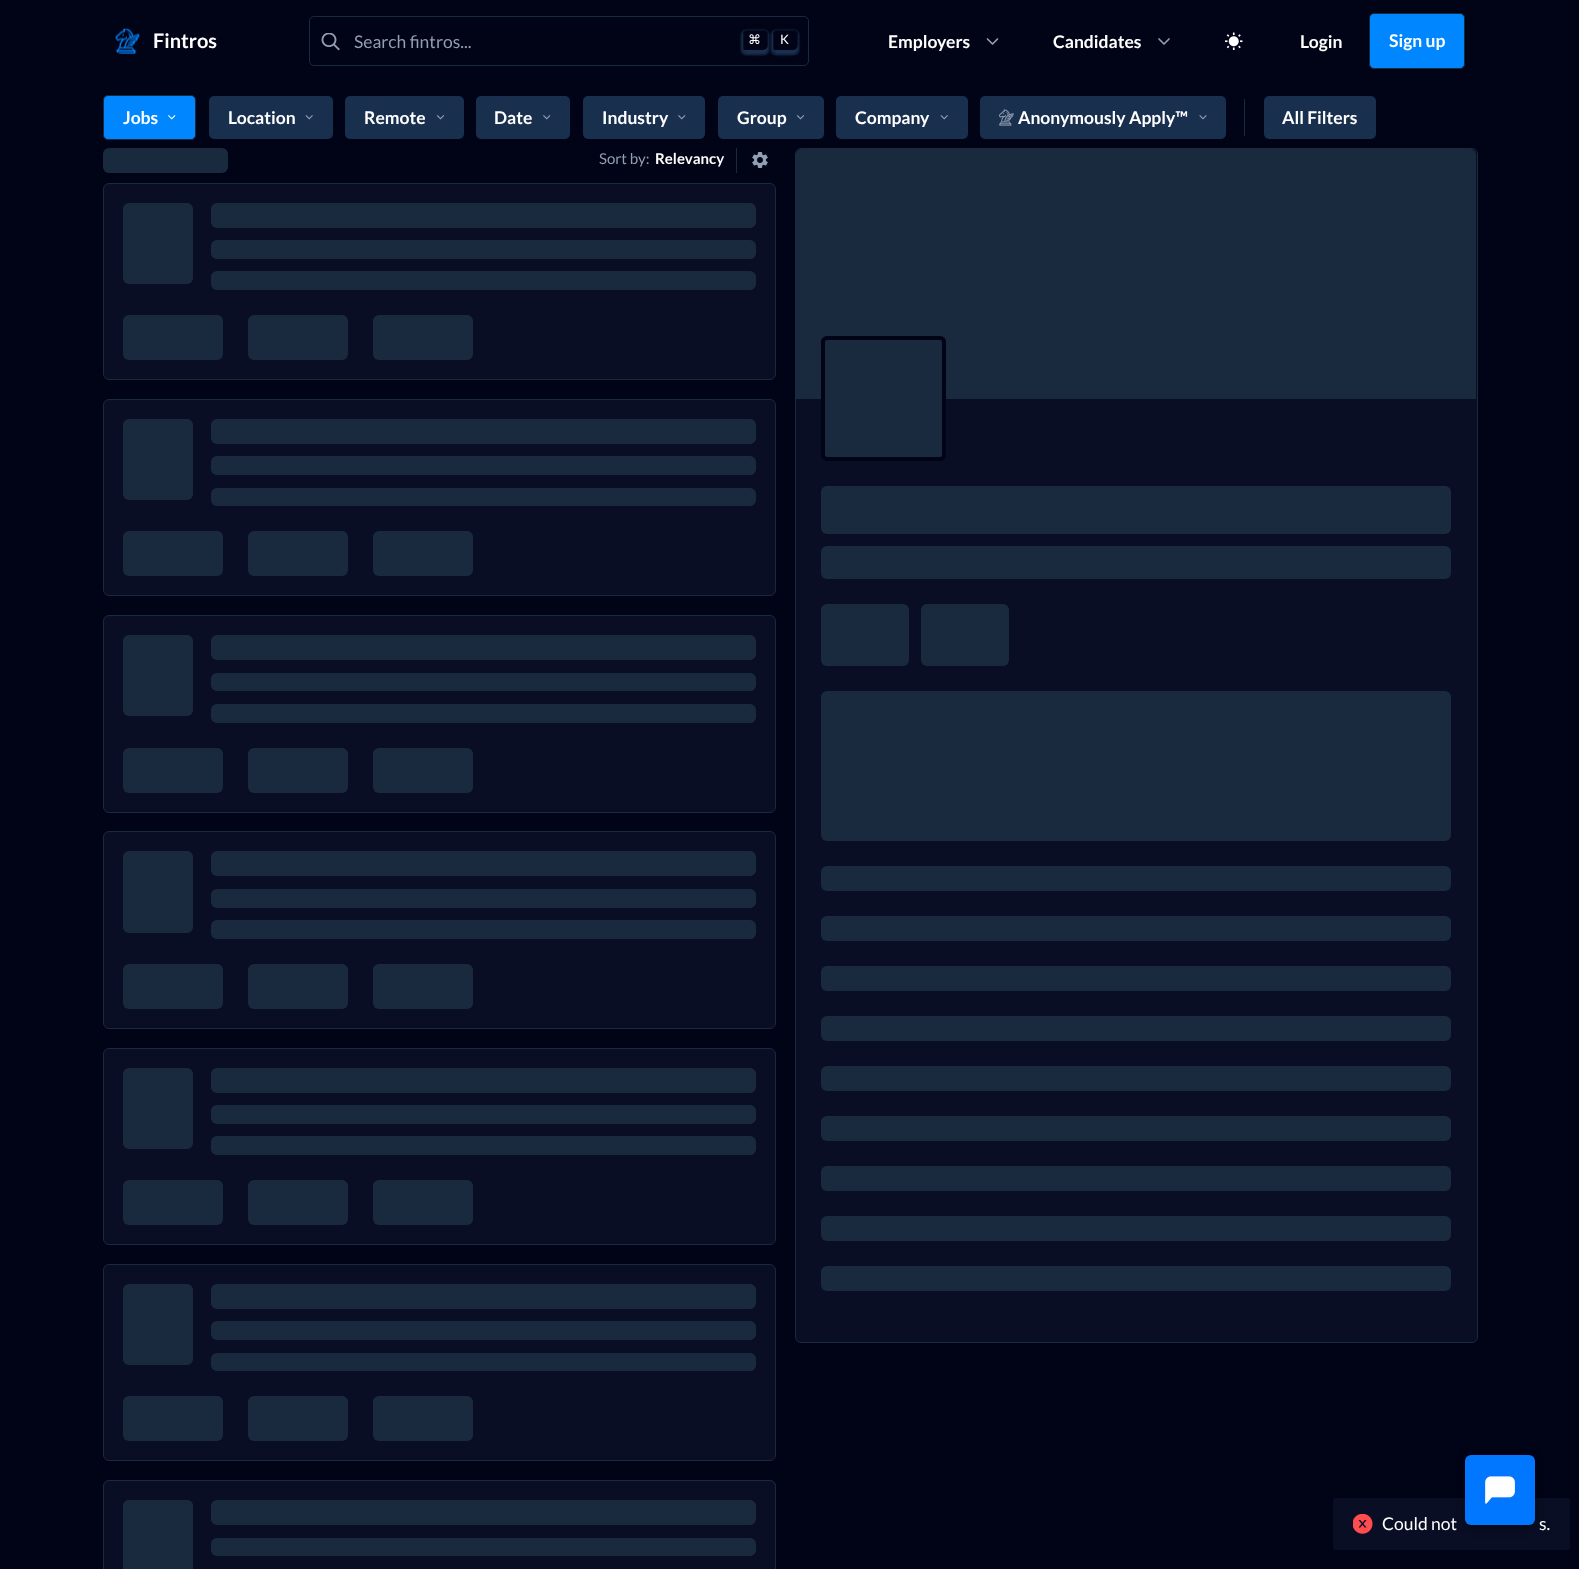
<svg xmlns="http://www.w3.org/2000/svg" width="1579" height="1569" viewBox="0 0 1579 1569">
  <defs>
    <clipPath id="clip1"><path d="M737 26H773V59H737ZM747 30H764C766 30 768 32 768 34V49C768 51 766 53 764 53H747C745 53 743 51 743 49V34C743 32 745 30 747 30Z" clip-rule="evenodd"/></clipPath>
    <clipPath id="clip2"><path d="M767 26H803V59H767ZM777 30H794C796 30 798 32 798 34V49C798 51 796 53 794 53H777C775 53 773 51 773 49V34C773 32 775 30 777 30Z" clip-rule="evenodd"/></clipPath>
    <clipPath id="clip3"><rect x="796" y="149" width="680" height="1192" rx="5"/></clipPath>
  </defs>
  <rect width="100%" height="100%" fill="#010316"/>
  <image x="115" y="28" width="25" height="26" href="img/1.png"/>
  <rect x="309.5" y="16.5" width="499" height="49" rx="4.5" fill="none" stroke="#192a3e"/>
  <image x="321" y="33" width="19" height="18" href="img/2.png"/>
  <g clip-path="url(#clip1)">
    <rect x="741" y="30" width="28" height="25" rx="5" fill="#192f4e" filter="blur(1px)"/>
  </g>
  <rect x="743.5" y="30.5" width="24" height="22" rx="3.5" fill="none" stroke="#0a0e24"/>
  <path d="M743 48.5V49C743 51 745 53 747 53H764C766 53 768 51 768 49V44.5C768 48 766.5 50 761 50H746C744.5 50 743.5 49.5 743 48.5Z" fill="#192f4e"/>
  <g clip-path="url(#clip2)">
    <rect x="771" y="30" width="28" height="25" rx="5" fill="#192f4e" filter="blur(1px)"/>
  </g>
  <rect x="773.5" y="30.5" width="24" height="22" rx="3.5" fill="none" stroke="#0a0e24"/>
  <path d="M773 48.5V49C773 51 775 53 777 53H794C796 53 798 51 798 49V44.5C798 48 796.5 50 791 50H776C774.5 50 773.5 49.5 773 48.5Z" fill="#192f4e"/>
  <path d="M987.5 39L992.5 44L997.5 39" fill="none" stroke="#929eb1" stroke-width="1.7" stroke-linecap="round" stroke-linejoin="round"/>
  <path d="M1159 39L1164 44L1169 39" fill="none" stroke="#929eb1" stroke-width="1.7" stroke-linecap="round" stroke-linejoin="round"/>
  <image x="1225" y="32" width="18" height="18" href="img/3.png"/>
  <rect x="1369.5" y="13.5" width="95" height="55" rx="4.5" fill="#0086ff" stroke="#192a3e"/>
  <rect x="103.5" y="95.5" width="92" height="44" rx="4.5" fill="#0086ff" stroke="#192a3e"/>
  <image x="168" y="115" width="8" height="5" href="img/4.png"/>
  <rect x="209" y="96" width="124" height="43" rx="5" fill="#192f4e"/>
  <image x="305" y="115" width="8" height="5" href="img/5.png"/>
  <rect x="345" y="96" width="119" height="43" rx="5" fill="#192f4e"/>
  <image x="436" y="115" width="9" height="5" href="img/6.png"/>
  <rect x="476" y="96" width="94" height="43" rx="5" fill="#192f4e"/>
  <image x="543" y="115" width="8" height="5" href="img/7.png"/>
  <rect x="583" y="96" width="122" height="43" rx="5" fill="#192f4e"/>
  <image x="678" y="115" width="8" height="5" href="img/7.png"/>
  <rect x="718" y="96" width="106" height="43" rx="5" fill="#192f4e"/>
  <image x="796" y="115" width="9" height="5" href="img/6.png"/>
  <rect x="836" y="96" width="132" height="43" rx="5" fill="#192f4e"/>
  <image x="940" y="115" width="8" height="5" href="img/5.png"/>
  <rect x="980" y="96" width="246" height="43" rx="5" fill="#192f4e"/>
  <image x="999" y="109" width="15" height="17" href="img/8.png"/>
  <image x="1199" y="115" width="8" height="5" href="img/9.png"/>
  <path d="M1244 99h1v37H1244z" fill="#192a3e"/>
  <rect x="1264" y="96" width="112" height="43" rx="5" fill="#192f4e"/>
  <rect x="103" y="148" width="125" height="25" rx="6" fill="#192a3e"/>
  <path d="M736 148h1v25H736z" fill="#192a3e"/>
  <image x="752" y="152" width="16" height="16" href="img/10.png"/>
  <rect x="103.5" y="183.5" width="672" height="196" rx="5.5" fill="#0a0e24" stroke="#192a3e"/>
  <rect x="123" y="203" width="70" height="81" rx="6" fill="#192a3e"/>
  <rect x="211" y="203" width="545" height="25" rx="6" fill="#192a3e"/>
  <rect x="211" y="240" width="545" height="19" rx="6" fill="#192a3e"/>
  <rect x="211" y="271" width="545" height="19" rx="6" fill="#192a3e"/>
  <rect x="123" y="315" width="100" height="45" rx="6" fill="#192a3e"/>
  <rect x="248" y="315" width="100" height="45" rx="6" fill="#192a3e"/>
  <rect x="373" y="315" width="100" height="45" rx="6" fill="#192a3e"/>
  <rect x="103.5" y="399.5" width="672" height="196" rx="5.5" fill="#0a0e24" stroke="#192a3e"/>
  <rect x="123" y="419" width="70" height="81" rx="6" fill="#192a3e"/>
  <rect x="211" y="419" width="545" height="25" rx="6" fill="#192a3e"/>
  <rect x="211" y="456" width="545" height="19" rx="6" fill="#192a3e"/>
  <rect x="211" y="488" width="545" height="18" rx="6" fill="#192a3e"/>
  <rect x="123" y="531" width="100" height="45" rx="6" fill="#192a3e"/>
  <rect x="248" y="531" width="100" height="45" rx="6" fill="#192a3e"/>
  <rect x="373" y="531" width="100" height="45" rx="6" fill="#192a3e"/>
  <rect x="103.5" y="615.5" width="672" height="197" rx="5.5" fill="#0a0e24" stroke="#192a3e"/>
  <rect x="123" y="635" width="70" height="81" rx="6" fill="#192a3e"/>
  <rect x="211" y="635" width="545" height="25" rx="6" fill="#192a3e"/>
  <rect x="211" y="673" width="545" height="18" rx="6" fill="#192a3e"/>
  <rect x="211" y="704" width="545" height="19" rx="6" fill="#192a3e"/>
  <rect x="123" y="748" width="100" height="45" rx="6" fill="#192a3e"/>
  <rect x="248" y="748" width="100" height="45" rx="6" fill="#192a3e"/>
  <rect x="373" y="748" width="100" height="45" rx="6" fill="#192a3e"/>
  <rect x="103.5" y="831.5" width="672" height="197" rx="5.5" fill="#0a0e24" stroke="#192a3e"/>
  <rect x="123" y="851" width="70" height="82" rx="6" fill="#192a3e"/>
  <rect x="211" y="851" width="545" height="25" rx="6" fill="#192a3e"/>
  <rect x="211" y="889" width="545" height="19" rx="6" fill="#192a3e"/>
  <rect x="211" y="920" width="545" height="19" rx="6" fill="#192a3e"/>
  <rect x="123" y="964" width="100" height="45" rx="6" fill="#192a3e"/>
  <rect x="248" y="964" width="100" height="45" rx="6" fill="#192a3e"/>
  <rect x="373" y="964" width="100" height="45" rx="6" fill="#192a3e"/>
  <rect x="103.5" y="1048.5" width="672" height="196" rx="5.5" fill="#0a0e24" stroke="#192a3e"/>
  <rect x="123" y="1068" width="70" height="81" rx="6" fill="#192a3e"/>
  <rect x="211" y="1068" width="545" height="25" rx="6" fill="#192a3e"/>
  <rect x="211" y="1105" width="545" height="19" rx="6" fill="#192a3e"/>
  <rect x="211" y="1136" width="545" height="19" rx="6" fill="#192a3e"/>
  <rect x="123" y="1180" width="100" height="45" rx="6" fill="#192a3e"/>
  <rect x="248" y="1180" width="100" height="45" rx="6" fill="#192a3e"/>
  <rect x="373" y="1180" width="100" height="45" rx="6" fill="#192a3e"/>
  <rect x="103.5" y="1264.5" width="672" height="196" rx="5.5" fill="#0a0e24" stroke="#192a3e"/>
  <rect x="123" y="1284" width="70" height="81" rx="6" fill="#192a3e"/>
  <rect x="211" y="1284" width="545" height="25" rx="6" fill="#192a3e"/>
  <rect x="211" y="1321" width="545" height="19" rx="6" fill="#192a3e"/>
  <rect x="211" y="1353" width="545" height="18" rx="6" fill="#192a3e"/>
  <rect x="123" y="1396" width="100" height="45" rx="6" fill="#192a3e"/>
  <rect x="248" y="1396" width="100" height="45" rx="6" fill="#192a3e"/>
  <rect x="373" y="1396" width="100" height="45" rx="6" fill="#192a3e"/>
  <path d="M109 1480H770C773.5 1480 776 1482.5 776 1486V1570H103V1486C103 1482.5 105.5 1480 109 1480Z" fill="#0a0e24"/>
  <rect x="103.5" y="1480.5" width="672" height="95" rx="5.5" fill="none" stroke="#192a3e"/>
  <path d="M129 1500H187C190.5 1500 193 1502.5 193 1506V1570H123V1506C123 1502.5 125.5 1500 129 1500Z" fill="#192a3e"/>
  <rect x="211" y="1500" width="545" height="25" rx="6" fill="#192a3e"/>
  <rect x="211" y="1538" width="545" height="18" rx="6" fill="#192a3e"/>
  <rect x="795.5" y="148.5" width="682" height="1194" rx="5.5" fill="#0a0e24" stroke="#192a3e"/>
  <g clip-path="url(#clip3)">
    <path d="M802 149H1470C1473.5 149 1476 151.5 1476 155V399H796V155C796 151.5 798.5 149 802 149Z" fill="#192a3e"/>
  </g>
  <rect x="823" y="338" width="121" height="121" rx="4" fill="#192a3e" stroke="#010316" stroke-width="4"/>
  <rect x="821" y="486" width="630" height="48" rx="6" fill="#192a3e"/>
  <rect x="821" y="546" width="630" height="33" rx="6" fill="#192a3e"/>
  <rect x="821" y="604" width="88" height="62" rx="6" fill="#192a3e"/>
  <rect x="921" y="604" width="88" height="62" rx="6" fill="#192a3e"/>
  <rect x="821" y="691" width="630" height="150" rx="6" fill="#192a3e"/>
  <rect x="821" y="866" width="630" height="25" rx="6" fill="#192a3e"/>
  <rect x="821" y="916" width="630" height="25" rx="6" fill="#192a3e"/>
  <rect x="821" y="966" width="630" height="25" rx="6" fill="#192a3e"/>
  <rect x="821" y="1016" width="630" height="25" rx="6" fill="#192a3e"/>
  <rect x="821" y="1066" width="630" height="25" rx="6" fill="#192a3e"/>
  <rect x="821" y="1116" width="630" height="25" rx="6" fill="#192a3e"/>
  <rect x="821" y="1166" width="630" height="25" rx="6" fill="#192a3e"/>
  <rect x="821" y="1216" width="630" height="25" rx="6" fill="#192a3e"/>
  <rect x="821" y="1266" width="630" height="25" rx="6" fill="#192a3e"/>
  <rect x="1333" y="1498" width="237" height="52" rx="2.5" fill="#0a0e24"/>
  <rect x="1465" y="1458" width="70" height="70" rx="6" fill="#00000066" filter="blur(4px)"/>
  <rect x="1465" y="1455" width="70" height="70" rx="6" fill="#0176ff"/>
  <image x="1485" y="1476" width="30" height="28" href="img/11.png"/>
  <image x="1353" y="1514" width="20" height="20" href="img/12.png"/>
  <text x="153" y="48" font-family="Lato" font-size="20" font-weight="bold" fill="#fff">Fintros</text>
  <text x="354" y="48" font-family="Lato" font-size="17.5" fill="#929eb1">Search fintros...</text>
  <text x="748" y="44" font-family="DejaVu Sans" font-size="13" fill="#fff">⌘</text>
  <text x="780" y="44" font-family="Lato" font-size="13" fill="#fff">K</text>
  <g font-family="Lato" font-size="17.5" font-weight="bold" fill="#fff">
    <text x="888" y="48">Employers</text>
    <text x="1053" y="48">Candidates</text>
    <text x="1300" y="48">Login</text>
    <text x="1389" y="47">Sign up</text>
    <text x="123" y="124">Jobs</text>
    <text x="228" y="124">Location</text>
    <text x="364" y="124">Remote</text>
    <text x="494" y="124">Date</text>
    <text x="602" y="124">Industry</text>
    <text x="737" y="124">Group</text>
    <text x="855" y="124">Company</text>
    <text x="1018" y="124">Anonymously Apply™</text>
    <text x="1282" y="124">All Filters</text>
  </g>
  <text x="599" y="164" font-family="Lato" font-size="15" fill="#929eb1">Sort by:</text>
  <text x="655" y="164" font-family="Lato" font-size="15" font-weight="bold" fill="#fff">Relevancy</text>
  <g font-family="Lato" font-size="17.5" fill="#fff">
    <text x="1382" y="1530">Could not</text>
    <text x="1539" y="1530">s.</text>
  </g>
</svg>
